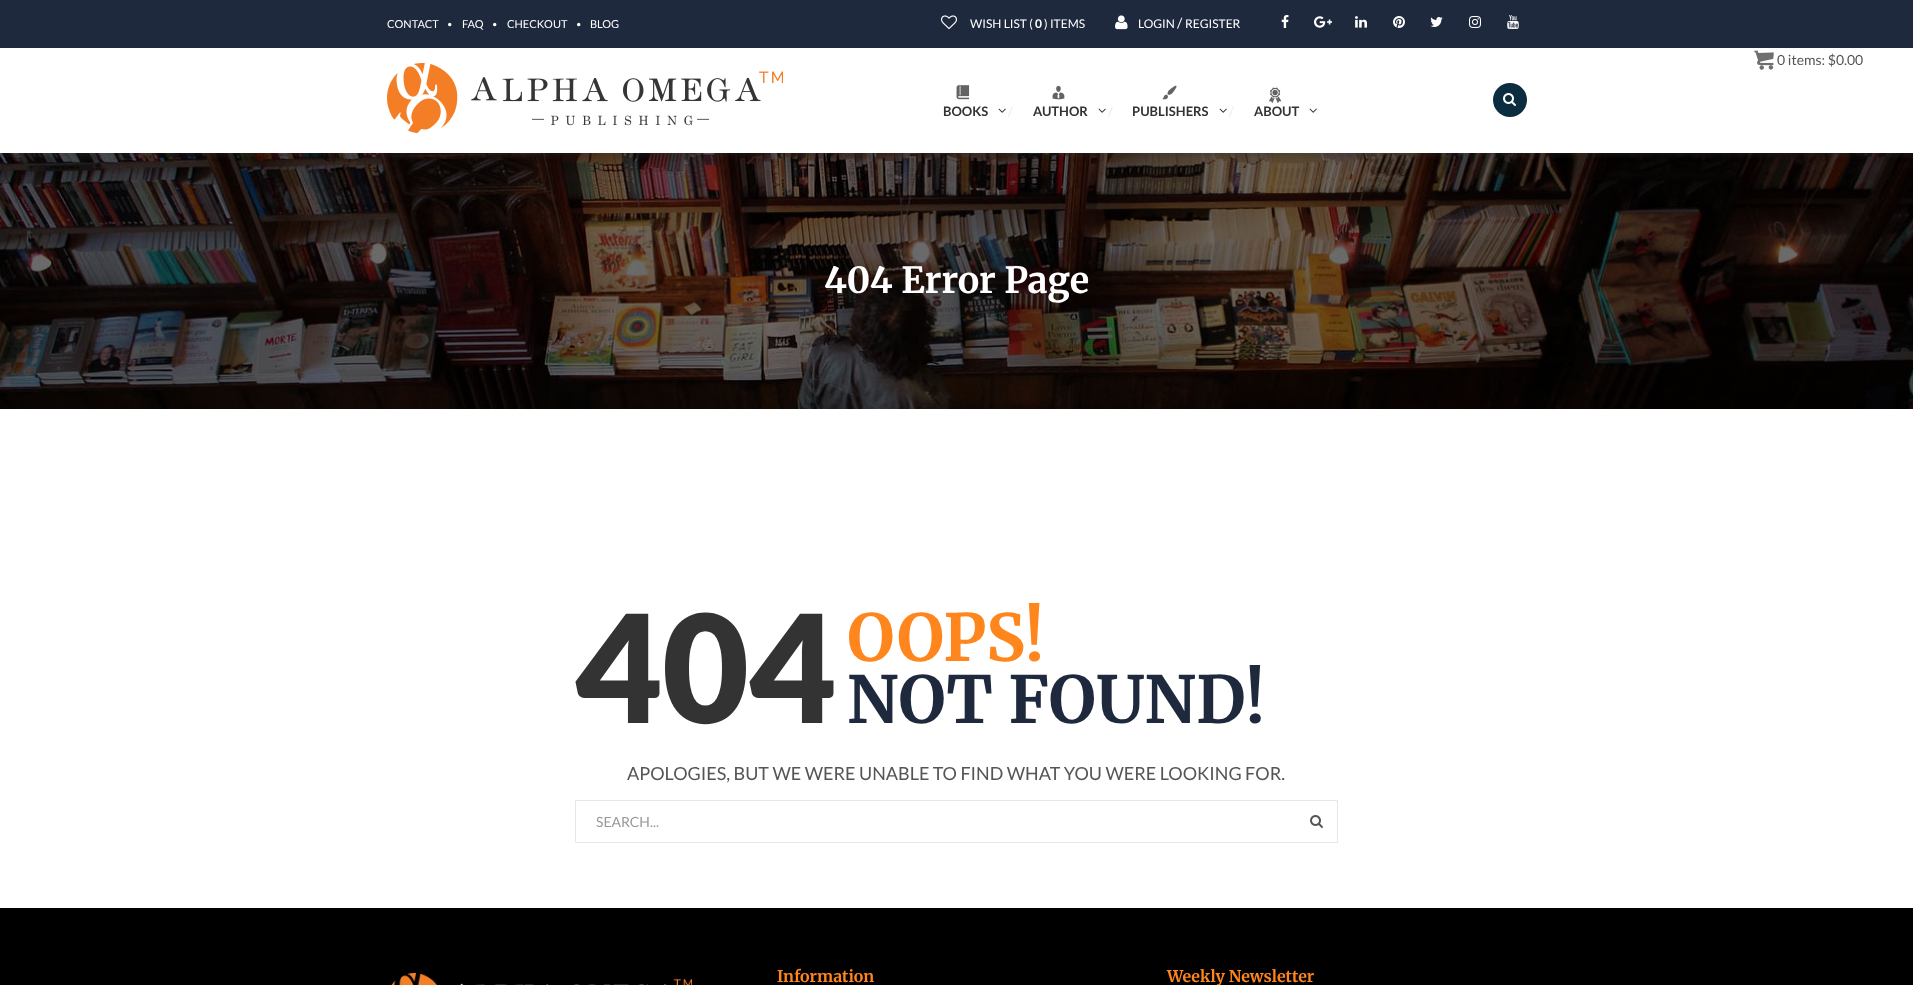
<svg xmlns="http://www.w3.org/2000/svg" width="1913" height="985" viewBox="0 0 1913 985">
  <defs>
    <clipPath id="clip1"><path d="M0 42H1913V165H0ZM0 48H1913V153H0Z" clip-rule="evenodd"/></clipPath>
  </defs>
  <rect width="100%" height="100%" fill="#fff"/>
  <path d="M0 0h1913v48H0z" fill="#1e293d"/>
  <image x="448" y="22" width="4" height="5" href="img/1.png"/>
  <image x="493" y="22" width="4" height="5" href="img/1.png"/>
  <image x="577" y="22" width="4" height="5" href="img/1.png"/>
  <image x="941" y="15" width="16" height="15" href="img/2.png"/>
  <image x="1115" y="15" width="13" height="15" href="img/3.png"/>
  <image x="1281" y="15" width="8" height="13" href="img/4.png"/>
  <image x="1314" y="16" width="18" height="12" href="img/5.png"/>
  <image x="1355" y="16" width="12" height="12" href="img/6.png"/>
  <image x="1393" y="16" width="12" height="12" href="img/7.png"/>
  <image x="1430" y="17" width="13" height="10" href="img/8.png"/>
  <image x="1469" y="16" width="12" height="12" href="img/9.png"/>
  <image x="1507" y="15" width="12" height="14" href="img/10.png"/>
  <image x="0" y="153" width="1913" height="256" href="img/18.png"/>
  <g clip-path="url(#clip1)">
    <path d="M0 51h1913v105H0z" fill="#32323247" filter="blur(2.5px)"/>
  </g>
  <image x="387" y="63" width="396" height="70" href="img/11.png"/>
  <image x="956" y="85" width="14" height="15" href="img/12.png"/>
  <image x="998" y="108" width="8" height="5" href="img/13.png"/>
  <image x="1052" y="85" width="13" height="15" href="img/14.png"/>
  <image x="1098" y="108" width="8" height="5" href="img/13.png"/>
  <image x="1162" y="85" width="15" height="15" href="img/15.png"/>
  <image x="1219" y="108" width="8" height="5" href="img/13.png"/>
  <image x="1268" y="87" width="14" height="17" href="img/16.png"/>
  <image x="1309" y="108" width="8" height="5" href="img/13.png"/>
  <circle cx="1510" cy="100" r="17" fill="#0c2c40"/>
  <image x="1503" y="93" width="13" height="13" href="img/17.png"/>
  <path d="M575.5 800.5h762v42H575.5z" fill="none" stroke="#e6e6e6"/>
  <image x="1310" y="815" width="13" height="13" href="img/19.png"/>
  <path d="M0 908h1913v77H0z" fill="#000"/>
  <image x="391" y="973" width="301" height="12" href="img/20.png"/>
  <image x="1754" y="50" width="20" height="20" href="img/21.png"/>
  <g font-family="Lato" font-size="11" fill="#fff">
    <text x="387" y="28">CONTACT</text>
    <text x="462" y="28">FAQ</text>
    <text x="507" y="28">CHECKOUT</text>
    <text x="590" y="28">BLOG</text>
  </g>
  <text x="970" y="28" font-family="Lato" font-size="12" fill="#fff">WISH LIST (</text>
  <text x="1035" y="28" font-family="Lato" font-size="12" font-weight="bold" fill="#fff">0</text>
  <g font-family="Lato" font-size="12" fill="#fff">
    <text x="1044" y="28">) ITEMS</text>
    <text x="1138" y="28">LOGIN</text>
  </g>
  <text x="1177" y="28" font-family="Lato" font-size="14" fill="#fff">/</text>
  <text x="1185" y="28" font-family="Lato" font-size="12" fill="#fff">REGISTER</text>
  <text x="943" y="116" font-family="Lato" font-size="13" font-weight="bold" fill="#333">BOOKS</text>
  <text x="1008" y="116" font-family="Lato" font-size="13" fill="#ececec">/</text>
  <text x="1033" y="116" font-family="Lato" font-size="13" font-weight="bold" fill="#333">AUTHOR</text>
  <text x="1108" y="116" font-family="Lato" font-size="13" fill="#ececec">/</text>
  <text x="1132" y="116" font-family="Lato" font-size="13" font-weight="bold" fill="#333">PUBLISHERS</text>
  <text x="1229" y="116" font-family="Lato" font-size="13" fill="#ececec">/</text>
  <text x="1254" y="116" font-family="Lato" font-size="13" font-weight="bold" fill="#333">ABOUT</text>
  <text x="824" y="293" font-family="Merriweather" font-size="36" font-weight="bold" fill="#fff">404 Error Page</text>
  <text x="575" y="723" font-family="Lato" font-size="150" font-weight="900" fill="#333">404</text>
  <text x="847" y="661" font-family="Merriweather" font-size="65" font-weight="bold" fill="#ff851d">OOPS!</text>
  <text x="847" y="723" font-family="Merriweather" font-size="65" font-weight="bold" fill="#1e293d">NOT FOUND!</text>
  <text x="627" y="780" font-family="Lato" font-size="18" fill="#555">APOLOGIES, BUT WE WERE UNABLE TO FIND WHAT YOU WERE LOOKING FOR.</text>
  <text x="596" y="827" font-family="Lato" font-size="14" fill="#999">SEARCH...</text>
  <g font-family="Merriweather" font-size="16" font-weight="bold" fill="#ff851d">
    <text x="777" y="982">Information</text>
    <text x="1167" y="982">Weekly Newsletter</text>
  </g>
  <text x="1777" y="65" font-family="Lato" font-size="14" fill="#555">0 items: $0.00</text>
</svg>
